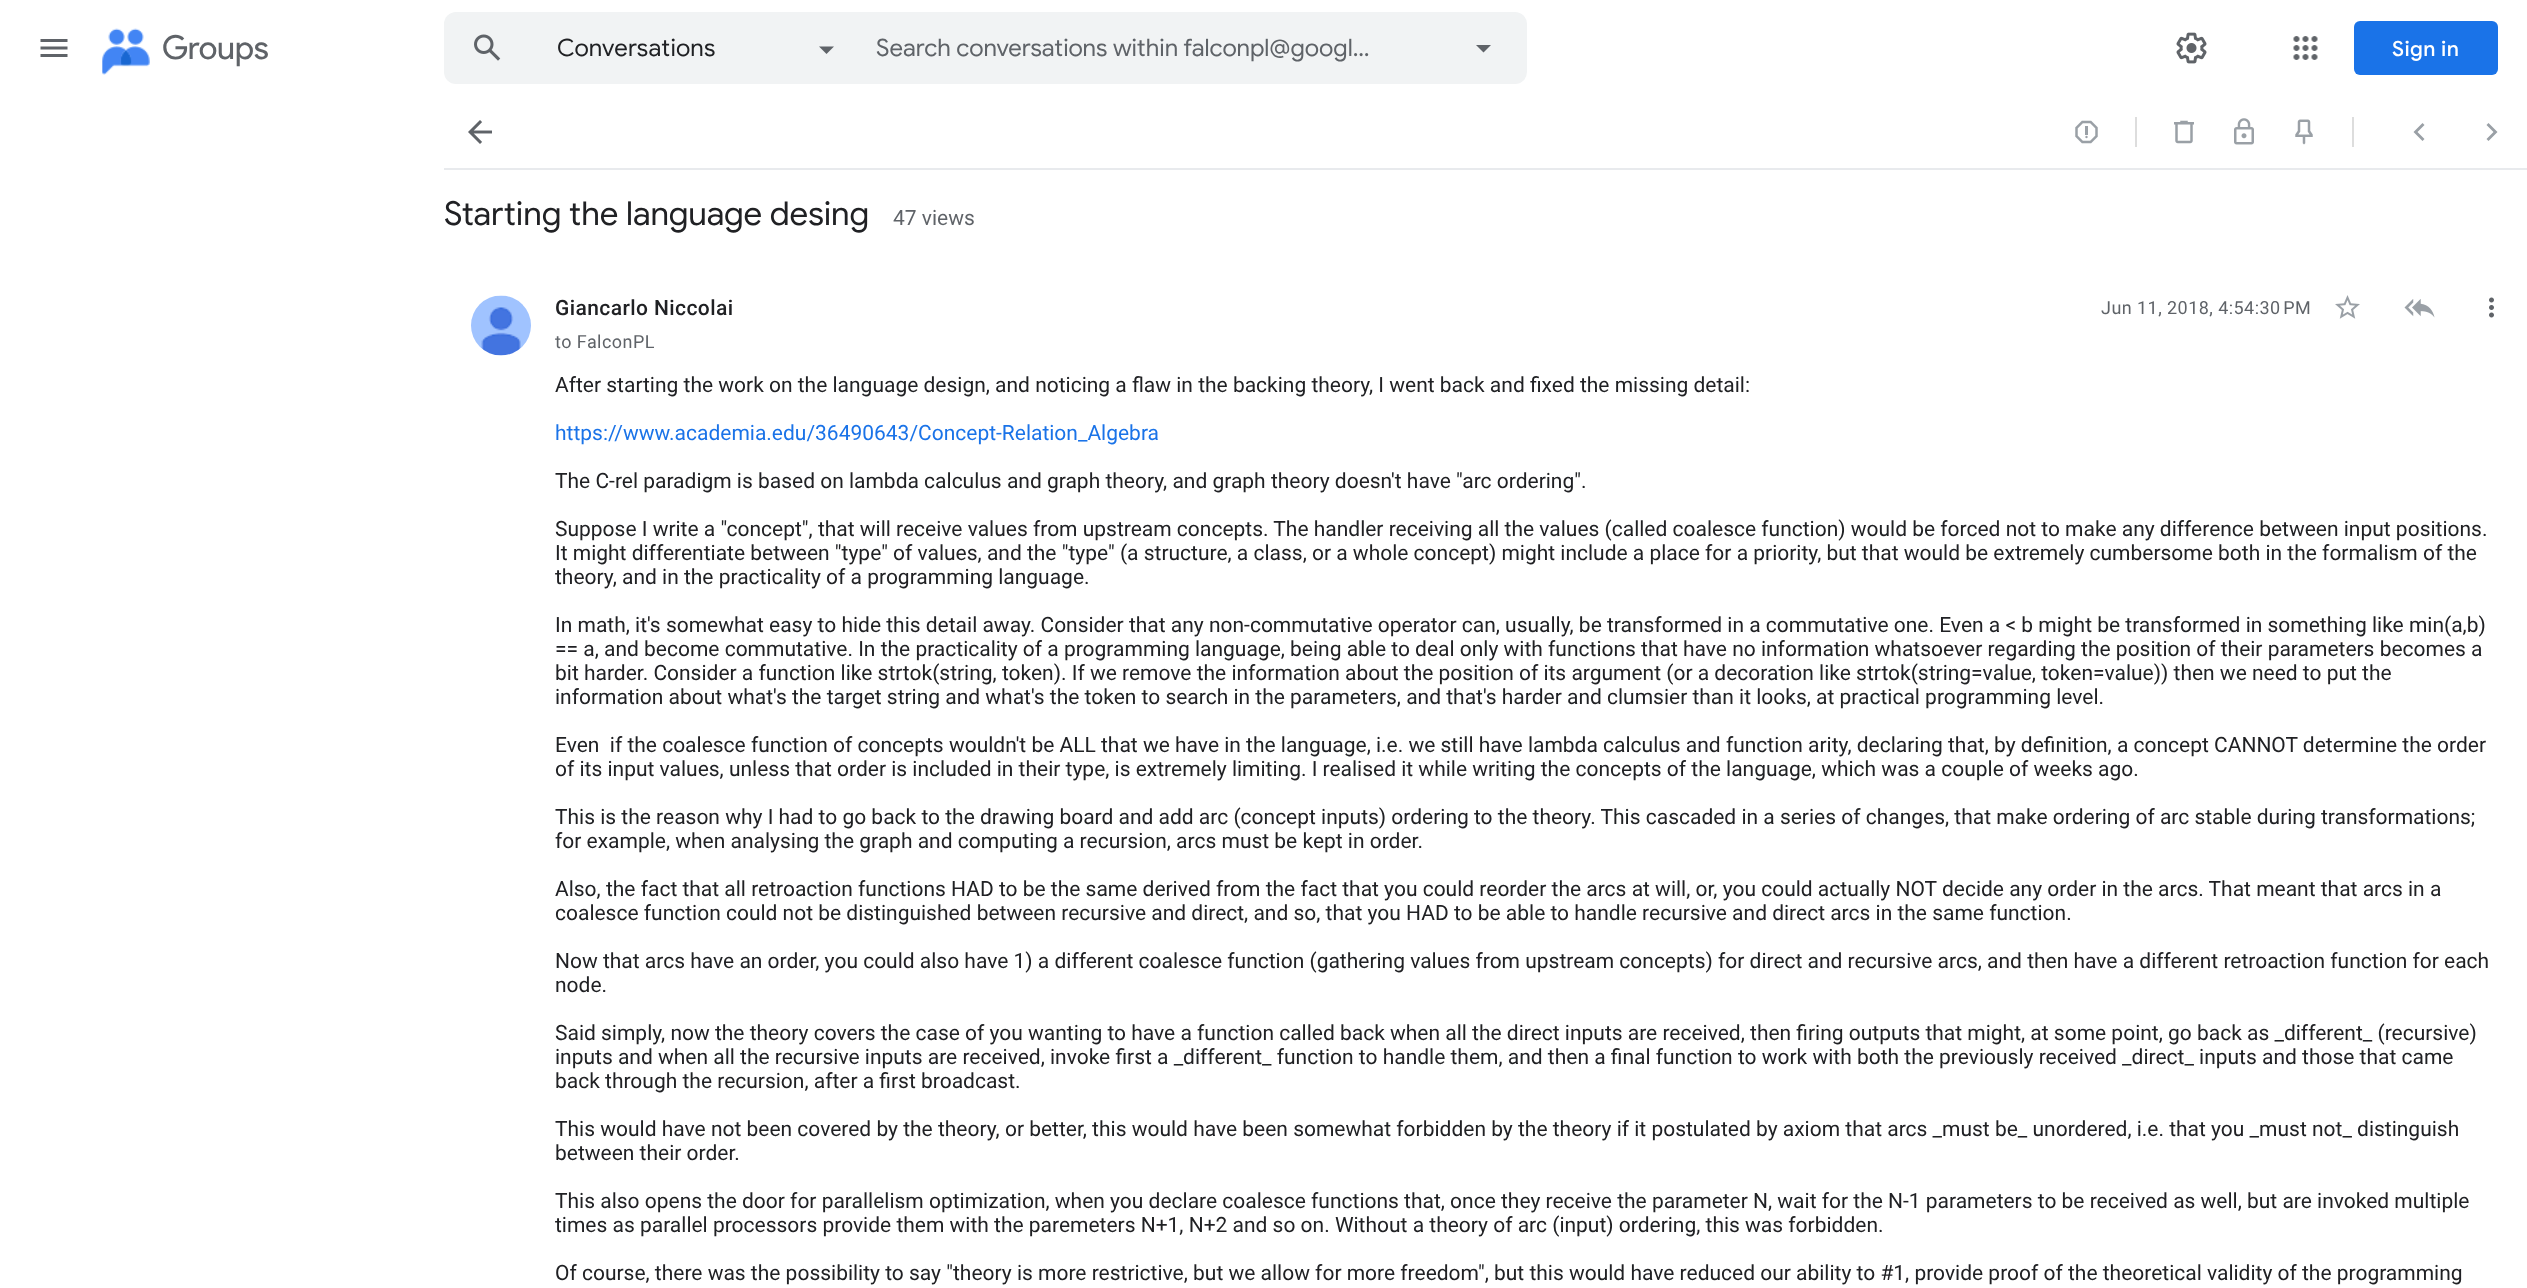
<svg xmlns="http://www.w3.org/2000/svg" width="2527" height="1288" viewBox="0 0 2527 1288">
  <rect width="100%" height="100%" fill="#fff"/>
  <image x="40" y="39" width="28" height="18" href="img/1.png"/>
  <image x="102" y="28" width="48" height="47" href="img/2.png"/>
  <rect x="444" y="12" width="1083" height="72" rx="12" fill="#f1f3f4"/>
  <image x="474" y="34" width="27" height="27" href="img/3.png"/>
  <path d="M819 46.5H834L826.5 54Z" fill="#5f6368"/>
  <path d="M1476 45L1483.5 52.5L1491 45Z" fill="#5f6368"/>
  <image x="2176" y="32" width="31" height="32" href="img/4.png"/>
  <image x="2293" y="36" width="25" height="24" href="img/5.png"/>
  <rect x="2354" y="21" width="144" height="54" rx="6" fill="#1a73e8"/>
  <path d="M444 168h2083v2H444z" fill="#e8eaed"/>
  <image x="468" y="120" width="24" height="24" href="img/6.png"/>
  <image x="2075" y="120" width="23" height="24" href="img/7.png"/>
  <path d="M2135 117h2v30H2135z" fill="#ddd"/>
  <image x="2174" y="120" width="20" height="24" href="img/8.png"/>
  <image x="2234" y="118" width="20" height="27" href="img/9.png"/>
  <image x="2295" y="119" width="18" height="26" href="img/10.png"/>
  <path d="M2352 117h2v30H2352z" fill="#ddd"/>
  <path d="M2424.5 125L2417.5 132L2424.5 139L2422.5 141L2413.5 132L2422.5 123Z" fill="#9aa0a6"/>
  <path d="M2488.5 123L2497.5 132L2488.5 141L2486.5 139L2493.5 132L2486.5 125Z" fill="#9aa0a6"/>
  <image x="471" y="295" width="60" height="61" href="img/11.png"/>
  <image x="2335" y="295" width="25" height="24" href="img/12.png"/>
  <image x="2404" y="299" width="31" height="19" href="img/13.png"/>
  <image x="2489" y="297" width="5" height="21" href="img/14.png"/>
  <text x="162" y="59" font-family="Product Sans" font-size="33" fill="#5f6368">Groups</text>
  <text x="557" y="56" font-family="Google Sans" font-size="24" letter-spacing="0.25" fill="#202124">Conversations</text>
  <text x="876" y="56" font-family="Google Sans" font-size="24" fill="#5f6368">Search conversations within falconpl@googl…</text>
  <text x="2392" y="56" font-family="Google Sans" font-size="21" font-weight="500" letter-spacing="0.4" fill="#fff">Sign in</text>
  <text x="444" y="225" font-family="Google Sans" font-size="33" fill="#202124">Starting the language desing</text>
  <text x="893" y="225" font-family="Roboto" font-size="21" fill="#5f6368">47 views</text>
  <text x="555" y="315" font-family="Roboto" font-size="21" font-weight="500" letter-spacing="0.4" fill="#202124">Giancarlo Niccolai</text>
  <g font-family="Roboto" font-size="18" letter-spacing="0.45" fill="#5f6368">
    <text x="2101" y="314">Jun 11, 2018, 4:54:30 PM</text>
    <text x="555" y="348">to FalconPL</text>
  </g>
  <text x="555" y="392" font-family="Roboto" font-size="21" fill="#202124">After starting the work on the language design, and noticing a flaw in the backing theory, I went back and fixed the missing detail:</text>
  <text x="555" y="440" font-family="Roboto" font-size="21" fill="#1a73e8">https://www.academia.edu/36490643/Concept-Relation_Algebra</text>
  <g font-family="Roboto" font-size="21" fill="#202124">
    <text x="555" y="488">The C-rel paradigm is based on lambda calculus and graph theory, and graph theory doesn't have "arc ordering".</text>
    <text x="555" y="536">Suppose I write a "concept", that will receive values from upstream concepts. The handler receiving all the values (called coalesce function) would be forced not to make any difference between input positions.</text>
    <text x="555" y="560">It might differentiate between "type" of values, and the "type" (a structure, a class, or a whole concept) might include a place for a priority, but that would be extremely cumbersome both in the formalism of the</text>
    <text x="555" y="584">theory, and in the practicality of a programming language.</text>
    <text x="555" y="632">In math, it's somewhat easy to hide this detail away. Consider that any non-commutative operator can, usually, be transformed in a commutative one. Even a &lt; b might be transformed in something like min(a,b)</text>
    <text x="555" y="656">== a, and become commutative. In the practicality of a programming language, being able to deal only with functions that have no information whatsoever regarding the position of their parameters becomes a</text>
    <text x="555" y="680">bit harder. Consider a function like strtok(string, token). If we remove the information about the position of its argument (or a decoration like strtok(string=value, token=value)) then we need to put the</text>
    <text x="555" y="704">information about what's the target string and what's the token to search in the parameters, and that's harder and clumsier than it looks, at practical programming level.</text>
    <text x="555" y="752" xml:space="preserve">Even  if the coalesce function of concepts wouldn't be ALL that we have in the language, i.e. we still have lambda calculus and function arity, declaring that, by definition, a concept CANNOT determine the order</text>
    <text x="555" y="776">of its input values, unless that order is included in their type, is extremely limiting. I realised it while writing the concepts of the language, which was a couple of weeks ago.</text>
    <text x="555" y="824">This is the reason why I had to go back to the drawing board and add arc (concept inputs) ordering to the theory. This cascaded in a series of changes, that make ordering of arc stable during transformations;</text>
    <text x="555" y="848">for example, when analysing the graph and computing a recursion, arcs must be kept in order.</text>
    <text x="555" y="896">Also, the fact that all retroaction functions HAD to be the same derived from the fact that you could reorder the arcs at will, or, you could actually NOT decide any order in the arcs. That meant that arcs in a</text>
    <text x="555" y="920">coalesce function could not be distinguished between recursive and direct, and so, that you HAD to be able to handle recursive and direct arcs in the same function.</text>
    <text x="555" y="968">Now that arcs have an order, you could also have 1) a different coalesce function (gathering values from upstream concepts) for direct and recursive arcs, and then have a different retroaction function for each</text>
    <text x="555" y="992">node.</text>
    <text x="555" y="1040">Said simply, now the theory covers the case of you wanting to have a function called back when all the direct inputs are received, then firing outputs that might, at some point, go back as _different_ (recursive)</text>
    <text x="555" y="1064">inputs and when all the recursive inputs are received, invoke first a _different_ function to handle them, and then a final function to work with both the previously received _direct_ inputs and those that came</text>
    <text x="555" y="1088">back through the recursion, after a first broadcast.</text>
    <text x="555" y="1136">This would have not been covered by the theory, or better, this would have been somewhat forbidden by the theory if it postulated by axiom that arcs _must be_ unordered, i.e. that you _must not_ distinguish</text>
    <text x="555" y="1160">between their order.</text>
    <text x="555" y="1208">This also opens the door for parallelism optimization, when you declare coalesce functions that, once they receive the parameter N, wait for the N-1 parameters to be received as well, but are invoked multiple</text>
    <text x="555" y="1232">times as parallel processors provide them with the paremeters N+1, N+2 and so on. Without a theory of arc (input) ordering, this was forbidden.</text>
    <text x="555" y="1280">Of course, there was the possibility to say "theory is more restrictive, but we allow for more freedom", but this would have reduced our ability to #1, provide proof of the theoretical validity of the programming</text>
  </g>
</svg>
